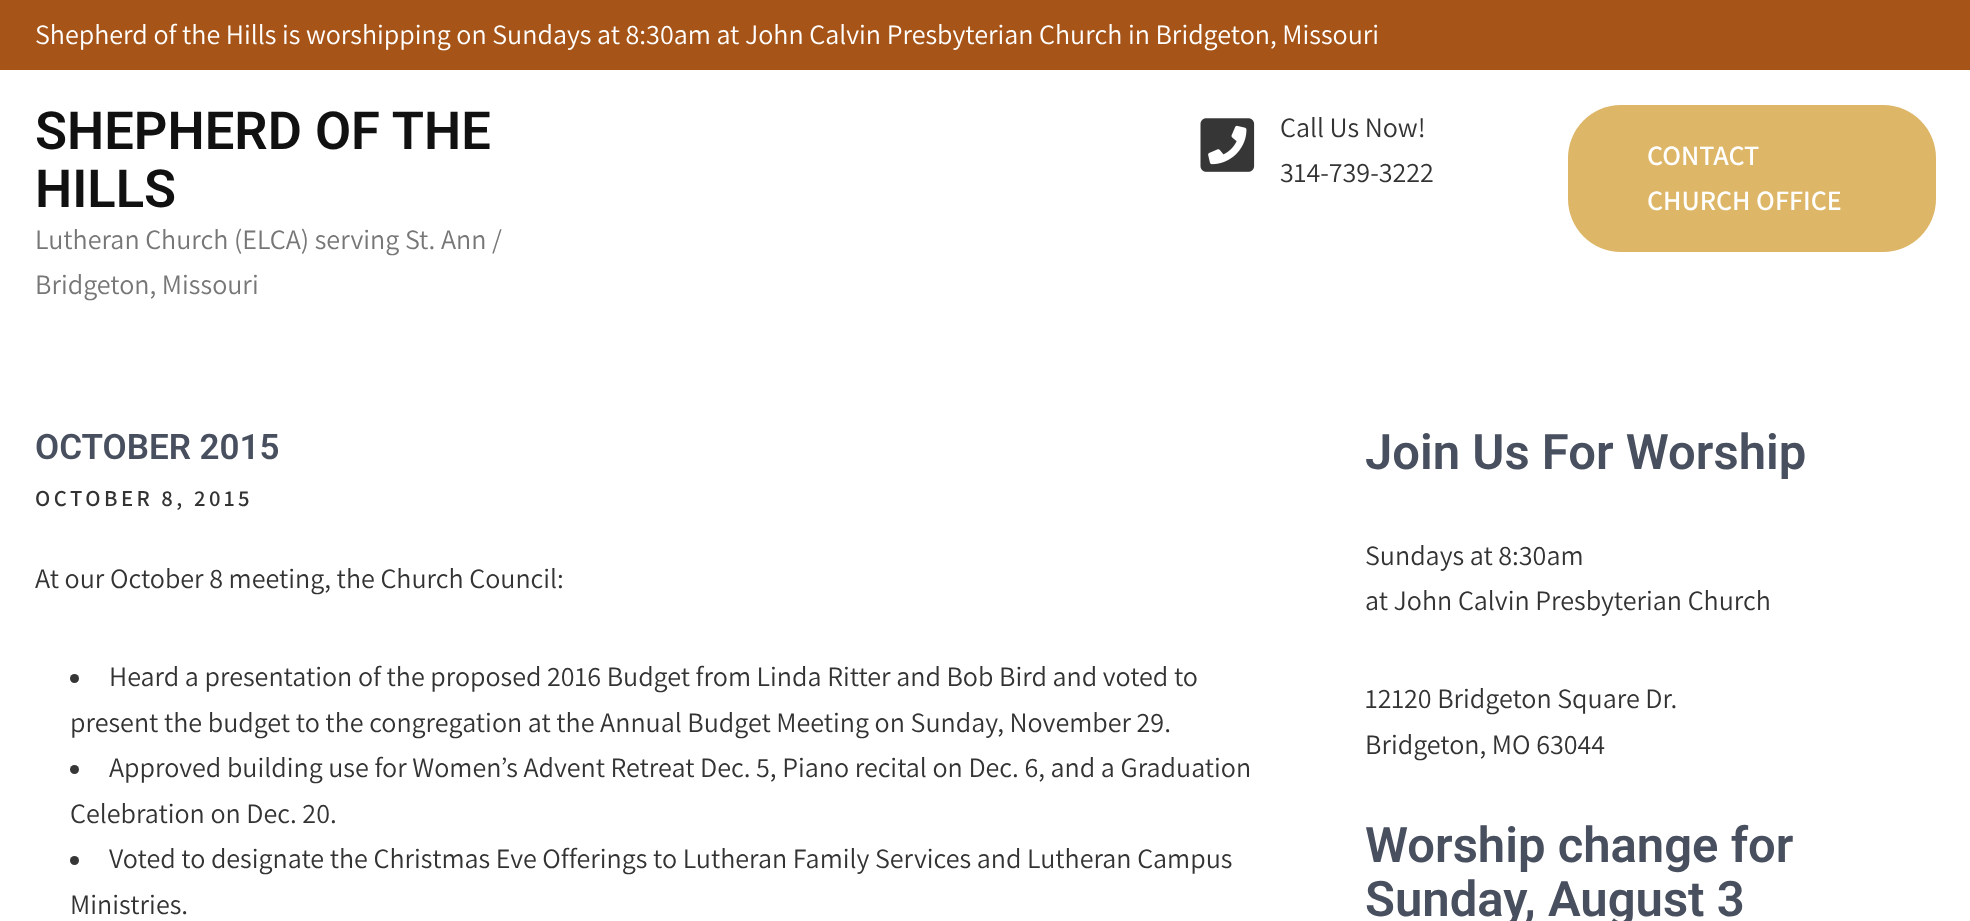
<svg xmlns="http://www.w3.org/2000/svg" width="1970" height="921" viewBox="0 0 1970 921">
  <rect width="100%" height="100%" fill="#fff"/>
  <path d="M0 0h1970v70H0z" fill="#a65418"/>
  <image x="1200" y="118" width="55" height="54" href="img/1.png"/>
  <rect x="1568" y="105" width="368" height="147" rx="53" fill="#ddb667"/>
  <circle cx="74.5" cy="678.5" r="4.5" fill="#363636"/>
  <circle cx="74.5" cy="769.5" r="4.5" fill="#363636"/>
  <circle cx="74.5" cy="860.5" r="4.5" fill="#363636"/>
  <text x="35" y="44" font-family="Assistant" font-size="28" fill="#fff">Shepherd of the Hills is worshipping on Sundays at 8:30am at John Calvin Presbyterian Church in Bridgeton, Missouri</text>
  <g font-family="Roboto" font-size="52.5" font-weight="600" fill="#111">
    <text x="35" y="149">SHEPHERD OF THE</text>
    <text x="35" y="207">HILLS</text>
  </g>
  <g font-family="Assistant" font-size="28" fill="#777">
    <text x="35" y="249">Lutheran Church (ELCA) serving St. Ann /</text>
    <text x="35" y="294">Bridgeton, Missouri</text>
  </g>
  <g font-family="Assistant" font-size="28" fill="#333">
    <text x="1280" y="137">Call Us Now!</text>
    <text x="1280" y="182">314-739-3222</text>
  </g>
  <g font-family="Assistant" font-size="28" font-weight="600" fill="#fff">
    <text x="1647" y="165">CONTACT</text>
    <text x="1647" y="210">CHURCH OFFICE</text>
  </g>
  <text x="35" y="459" font-family="Roboto" font-size="35" font-weight="600" fill="#484f5e">OCTOBER 2015</text>
  <text x="35" y="506" font-family="Assistant" font-size="22.75" font-weight="600" letter-spacing="3.5" fill="#333">OCTOBER 8, 2015</text>
  <g font-family="Assistant" font-size="28" fill="#333">
    <text x="35" y="588">At our October 8 meeting, the Church Council:</text>
    <text x="109" y="686">Heard a presentation of the proposed 2016 Budget from Linda Ritter and Bob Bird and voted to</text>
    <text x="70" y="732">present the budget to the congregation at the Annual Budget Meeting on Sunday, November 29.</text>
    <text x="109" y="777">Approved building use for Women’s Advent Retreat Dec. 5, Piano recital on Dec. 6, and a Graduation</text>
    <text x="70" y="823">Celebration on Dec. 20.</text>
    <text x="109" y="868">Voted to designate the Christmas Eve Offerings to Lutheran Family Services and Lutheran Campus</text>
    <text x="70" y="914">Ministries.</text>
  </g>
  <text x="1365" y="469" font-family="Roboto" font-size="49" font-weight="600" fill="#484f5e">Join Us For Worship</text>
  <g font-family="Assistant" font-size="28" fill="#333">
    <text x="1365" y="565">Sundays at 8:30am</text>
    <text x="1365" y="610">at John Calvin Presbyterian Church</text>
    <text x="1365" y="708">12120 Bridgeton Square Dr.</text>
    <text x="1365" y="754">Bridgeton, MO 63044</text>
  </g>
  <g font-family="Roboto" font-size="49" font-weight="600" fill="#484f5e">
    <text x="1365" y="862">Worship change for</text>
    <text x="1365" y="916">Sunday, August 3</text>
  </g>
</svg>
